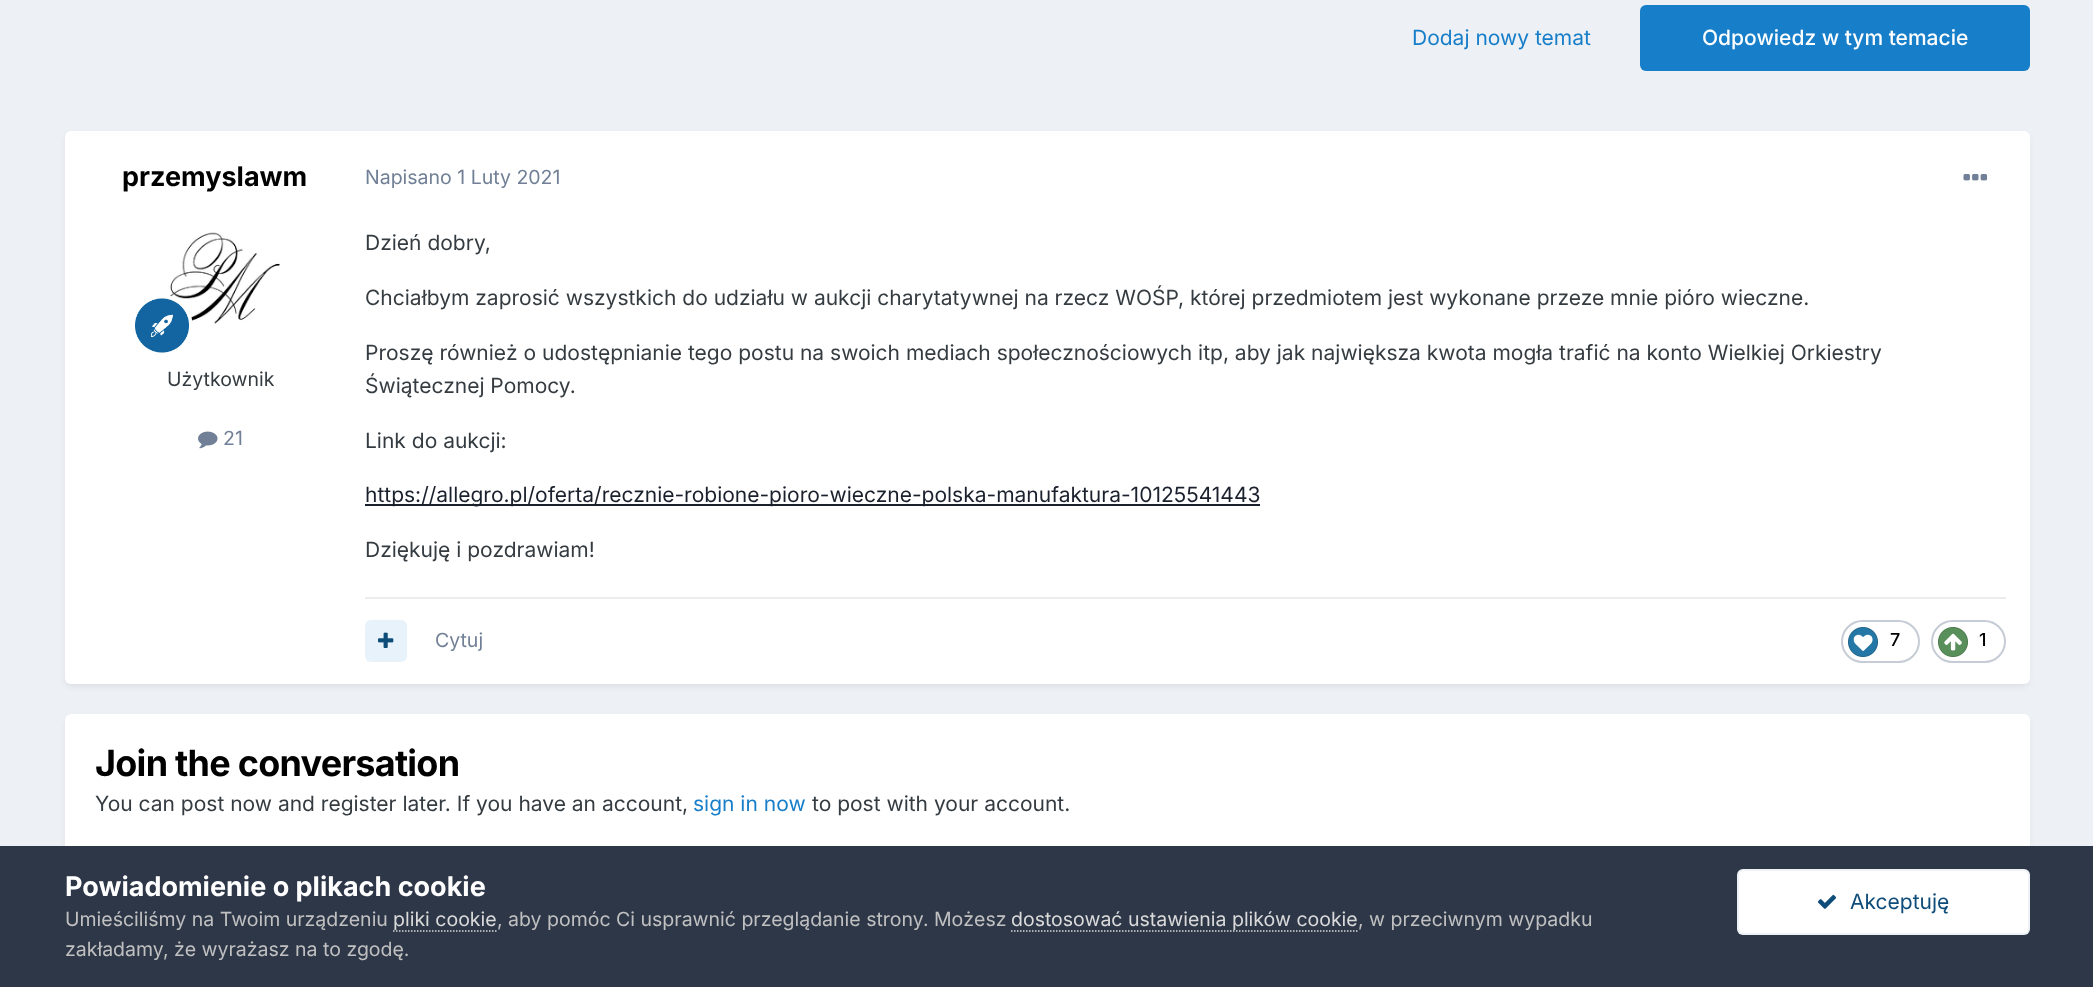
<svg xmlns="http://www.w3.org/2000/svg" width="2093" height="987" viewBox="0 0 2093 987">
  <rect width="100%" height="100%" fill="#edf0f4"/>
  <rect x="1640" y="5" width="390" height="66" rx="6" fill="#177ec9"/>
  <rect x="66" y="135" width="1962" height="551" rx="5" fill="#2d37481a" filter="blur(3px)"/>
  <rect x="65" y="131" width="1965" height="553" rx="6" fill="#fff"/>
  <image x="163" y="232" width="117" height="92" href="img/1.png"/>
  <image x="135" y="296" width="57" height="57" href="img/2.png"/>
  <image x="198" y="431" width="20" height="18" href="img/3.png"/>
  <image x="1963" y="174" width="25" height="7" href="img/4.png"/>
  <path d="M365 504h895v2H365z" fill="#1a202c"/>
  <path d="M365 597h1641v2H365z" fill="#ebecec"/>
  <rect x="365" y="620" width="42" height="42" rx="6" fill="#e8f2fa"/>
  <image x="378" y="632" width="16" height="16" href="img/5.png"/>
  <rect x="1842" y="621" width="77" height="41" rx="20.5" fill="none" stroke="#c6ccd5" stroke-width="2"/>
  <image x="1848" y="627" width="30" height="30" href="img/6.png"/>
  <rect x="1932" y="621" width="73" height="41" rx="20.5" fill="none" stroke="#c6ccd5" stroke-width="2"/>
  <image x="1938" y="627" width="30" height="30" href="img/7.png"/>
  <rect x="66" y="719" width="1962" height="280" rx="5" fill="#2d37481a" filter="blur(3px)"/>
  <rect x="65" y="714" width="1965" height="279" rx="6" fill="#fff"/>
  <path d="M0 846h2093v141H0z" fill="#2d3748"/>
  <path d="M393 931H496.5" fill="none" stroke="#dadada" stroke-width="1.5" stroke-dasharray="1.5 1.5"/>
  <path d="M1011 931H1357.5" fill="none" stroke="#dadada" stroke-width="1.5" stroke-dasharray="1.5 1.5"/>
  <rect x="1737" y="869" width="293" height="66" rx="6" fill="#fff"/>
  <rect x="1738" y="870" width="291" height="64" rx="5" fill="none" stroke="#0e4c7912" stroke-width="2"/>
  <image x="1817" y="894" width="20" height="15" href="img/8.png"/>
  <text x="1412" y="45" font-family="Inter" font-size="21" fill="#177ec9">Dodaj nowy temat</text>
  <text x="1702" y="45" font-family="Inter" font-size="21" font-weight="500" fill="#fff">Odpowiedz w tym temacie</text>
  <text x="122" y="186" font-family="Inter" font-size="27" font-weight="bold" fill="#000">przemyslawm</text>
  <text x="167" y="386" font-family="Inter" font-size="19.5" fill="#353c41">Użytkownik</text>
  <g font-family="Inter" font-size="19.5" fill="#718096">
    <text x="223" y="445">21</text>
    <text x="365" y="184">Napisano 1 Luty 2021</text>
  </g>
  <g font-family="Inter" font-size="21" fill="#353c41">
    <text x="365" y="250">Dzień dobry,</text>
    <text x="365" y="305">Chciałbym zaprosić wszystkich do udziału w aukcji charytatywnej na rzecz WOŚP, której przedmiotem jest wykonane przeze mnie pióro wieczne.</text>
    <text x="365" y="360">Proszę również o udostępnianie tego postu na swoich mediach społecznościowych itp, aby jak największa kwota mogła trafić na konto Wielkiej Orkiestry</text>
    <text x="365" y="393">Świątecznej Pomocy.</text>
    <text x="365" y="448">Link do aukcji:</text>
  </g>
  <text x="365" y="502" font-family="Inter" font-size="21" fill="#1a202c">https://allegro.pl/oferta/recznie-robione-pioro-wieczne-polska-manufaktura-10125541443</text>
  <text x="365" y="557" font-family="Inter" font-size="21" fill="#353c41">Dziękuję i pozdrawiam!</text>
  <text x="435" y="647" font-family="Inter" font-size="19.5" fill="#718096">Cytuj</text>
  <g font-family="Inter" font-size="18" font-weight="500" fill="#000">
    <text x="1890" y="646">7</text>
    <text x="1979" y="646">1</text>
  </g>
  <text x="95" y="776" font-family="Inter" font-size="36" font-weight="bold" letter-spacing="-0.75" fill="#000">Join the conversation</text>
  <text x="95" y="811" font-family="Inter" font-size="21" fill="#353c41">You can post now and register later. If you have an account,</text>
  <text x="693" y="811" font-family="Inter" font-size="21" fill="#177ec9">sign in now</text>
  <text x="812" y="811" font-family="Inter" font-size="21" fill="#353c41">to post with your account.</text>
  <text x="65" y="896" font-family="Inter" font-size="27" font-weight="bold" fill="#fff">Powiadomienie o plikach cookie</text>
  <text x="65" y="926" font-family="Inter" font-size="19.5" fill="#c0c0c0">Umieściliśmy na Twoim urządzeniu</text>
  <text x="393" y="926" font-family="Inter" font-size="19.5" fill="#dadada">pliki cookie</text>
  <text x="497" y="926" font-family="Inter" font-size="19.5" fill="#c0c0c0">, aby pomóc Ci usprawnić przeglądanie strony. Możesz</text>
  <text x="1011" y="926" font-family="Inter" font-size="19.5" fill="#dadada">dostosować ustawienia plików cookie</text>
  <g font-family="Inter" font-size="19.5" fill="#c0c0c0">
    <text x="1358" y="926">, w przeciwnym wypadku</text>
    <text x="65" y="956">zakładamy, że wyrażasz na to zgodę.</text>
  </g>
  <text x="1850" y="909" font-family="Inter" font-size="21" fill="#0e4c79">Akceptuję</text>
</svg>
